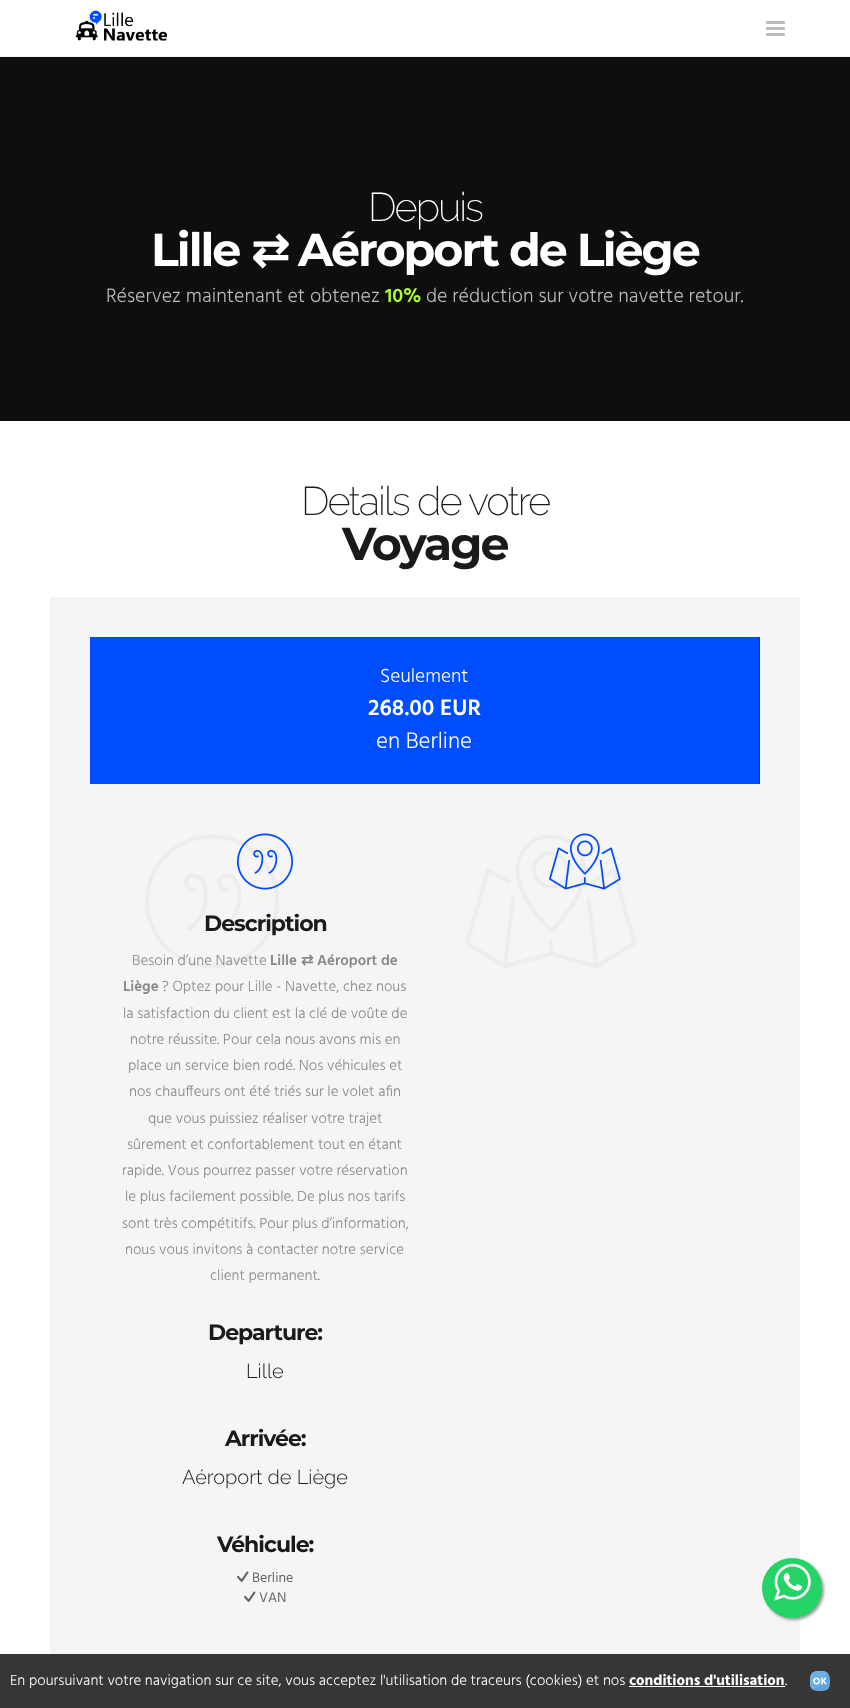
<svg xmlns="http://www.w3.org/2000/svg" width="850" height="1708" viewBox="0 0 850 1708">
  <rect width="100%" height="100%" fill="#fff"/>
  <path d="M0 56h850v1H0z" fill="#f0f0f0"/>
  <image x="75" y="10" width="92" height="31" href="img/1.png"/>
  <rect x="766" y="21" width="19" height="3" rx="1" fill="#bbb"/>
  <rect x="766" y="27" width="19" height="3" rx="1" fill="#bbb"/>
  <rect x="766" y="33" width="19" height="3" rx="1" fill="#bbb"/>
  <path d="M0 57h850v364H0z" fill="#0e0e0e"/>
  <path d="M50 597h750v1057H50z" fill="#f5f5f5"/>
  <path d="M90 637h669v147H90z" fill="#004cff"/>
  <path d="M759 637h1v147H759z" fill="#343a45"/>
  <image x="237" y="833" width="56" height="57" href="img/2.png"/>
  <image x="237" y="1571" width="12" height="11" href="img/4.png"/>
  <image x="244" y="1591" width="12" height="11" href="img/4.png"/>
  <image x="549" y="833" width="72" height="57" href="img/5.png"/>
  <image x="465" y="834" width="172" height="134" href="img/6.png"/>
  <rect x="764" y="1560" width="60" height="60" rx="30" fill="#999" filter="blur(1.5px)"/>
  <circle cx="792" cy="1588" r="30" fill="#25d366"/>
  <image x="774" y="1563" width="37" height="38" href="img/7.png"/>
  <path d="M0 1654h850v54H0z" fill="#363636"/>
  <path d="M629 1686h156v1H629z" fill="#fff"/>
  <image x="810" y="1671" width="20" height="20" href="img/8.png"/>
  <text x="368" y="221" font-family="Raleway" font-size="40" font-weight="200" letter-spacing="-2" fill="#fff">Depuis</text>
  <text x="151" y="266" font-family="Montserrat" font-size="46" font-weight="bold" letter-spacing="-2" fill="#fff">Lille</text>
  <text x="251" y="266" font-family="DejaVu Sans" font-size="46" font-weight="bold" letter-spacing="-2" fill="#fff">⇄</text>
  <text x="298" y="266" font-family="Montserrat" font-size="46" font-weight="bold" letter-spacing="-2" fill="#fff">Aéroport de Liège</text>
  <text x="106" y="302" font-family="Hind" font-size="20" font-weight="300" fill="#bbb">Réservez maintenant et obtenez</text>
  <text x="385" y="302" font-family="Hind" font-size="20" font-weight="600" fill="#adff2f">10%</text>
  <text x="426" y="302" font-family="Hind" font-size="20" font-weight="300" fill="#bbb">de réduction sur votre navette retour.</text>
  <text x="301" y="515" font-family="Raleway" font-size="40" font-weight="200" letter-spacing="-2" fill="#191a1c">Details de votre</text>
  <text x="342" y="560" font-family="Montserrat" font-size="46" font-weight="bold" letter-spacing="-2" fill="#191a1c">Voyage</text>
  <text x="380" y="682" font-family="Hind" font-size="19.5" font-weight="300" fill="#fff">Seulement</text>
  <text x="368" y="715" font-family="Hind" font-size="23" font-weight="600" fill="#fff">268.00 EUR</text>
  <text x="376" y="748" font-family="Hind" font-size="23" font-weight="300" fill="#fff">en Berline</text>
  <text x="204" y="931" font-family="Montserrat" font-size="22" font-weight="bold" letter-spacing="-1" fill="#191a1c">Description</text>
  <text x="132" y="965" font-family="Hind" font-size="15" font-weight="300" fill="#888">Besoin d’une Navette</text>
  <text x="270" y="965" font-family="Hind" font-size="15" font-weight="600" fill="#888">Lille</text>
  <image x="145" y="834" width="134" height="134" href="img/3.png"/>
  <text x="301" y="965" font-family="DejaVu Sans" font-size="15" font-weight="bold" fill="#888">⇄</text>
  <g font-family="Hind" font-size="15" font-weight="600" fill="#888">
    <text x="317" y="965">Aéroport de</text>
    <text x="123" y="991">Liège</text>
  </g>
  <g font-family="Hind" font-size="15" font-weight="300" fill="#888">
    <text x="162" y="991">? Optez pour Lille - Navette, chez nous</text>
    <text x="123" y="1018">la satisfaction du client est la clé de voûte de</text>
    <text x="130" y="1044">notre réussite. Pour cela nous avons mis en</text>
    <text x="128" y="1070">place un service bien rodé. Nos véhicules et</text>
    <text x="129" y="1096">nos chauffeurs ont été triés sur le volet afin</text>
    <text x="148" y="1123">que vous puissiez réaliser votre trajet</text>
    <text x="127" y="1149">sûrement et confortablement tout en étant</text>
    <text x="122" y="1175">rapide. Vous pourrez passer votre réservation</text>
    <text x="125" y="1201">le plus facilement possible. De plus nos tarifs</text>
    <text x="122" y="1228">sont très compétitifs. Pour plus d’information,</text>
    <text x="125" y="1254">nous vous invitons à contacter notre service</text>
    <text x="210" y="1280">client permanent.</text>
  </g>
  <text x="208" y="1340" font-family="Montserrat" font-size="22" font-weight="bold" letter-spacing="-1" fill="#191a1c">Departure:</text>
  <text x="246" y="1378" font-family="Raleway" font-size="20" font-weight="300" fill="#191a1c">Lille</text>
  <text x="225" y="1446" font-family="Montserrat" font-size="22" font-weight="bold" letter-spacing="-1" fill="#191a1c">Arrivée:</text>
  <text x="182" y="1484" font-family="Raleway" font-size="20" font-weight="300" fill="#191a1c">Aéroport de Liège</text>
  <text x="217" y="1552" font-family="Montserrat" font-size="22" font-weight="bold" letter-spacing="-1" fill="#191a1c">Véhicule:</text>
  <g font-family="Hind" font-size="14" fill="#666">
    <text x="252" y="1582">Berline</text>
    <text x="259" y="1602">VAN</text>
  </g>
  <text x="10" y="1685" font-family="Hind" font-size="15" font-weight="300" fill="#fff">En poursuivant votre navigation sur ce site, vous acceptez l'utilisation de traceurs (cookies) et nos</text>
  <text x="629" y="1685" font-family="Hind" font-size="15" font-weight="bold" fill="#fff">conditions d'utilisation</text>
  <text x="785" y="1685" font-family="Hind" font-size="15" font-weight="300" fill="#fff">.</text>
</svg>
